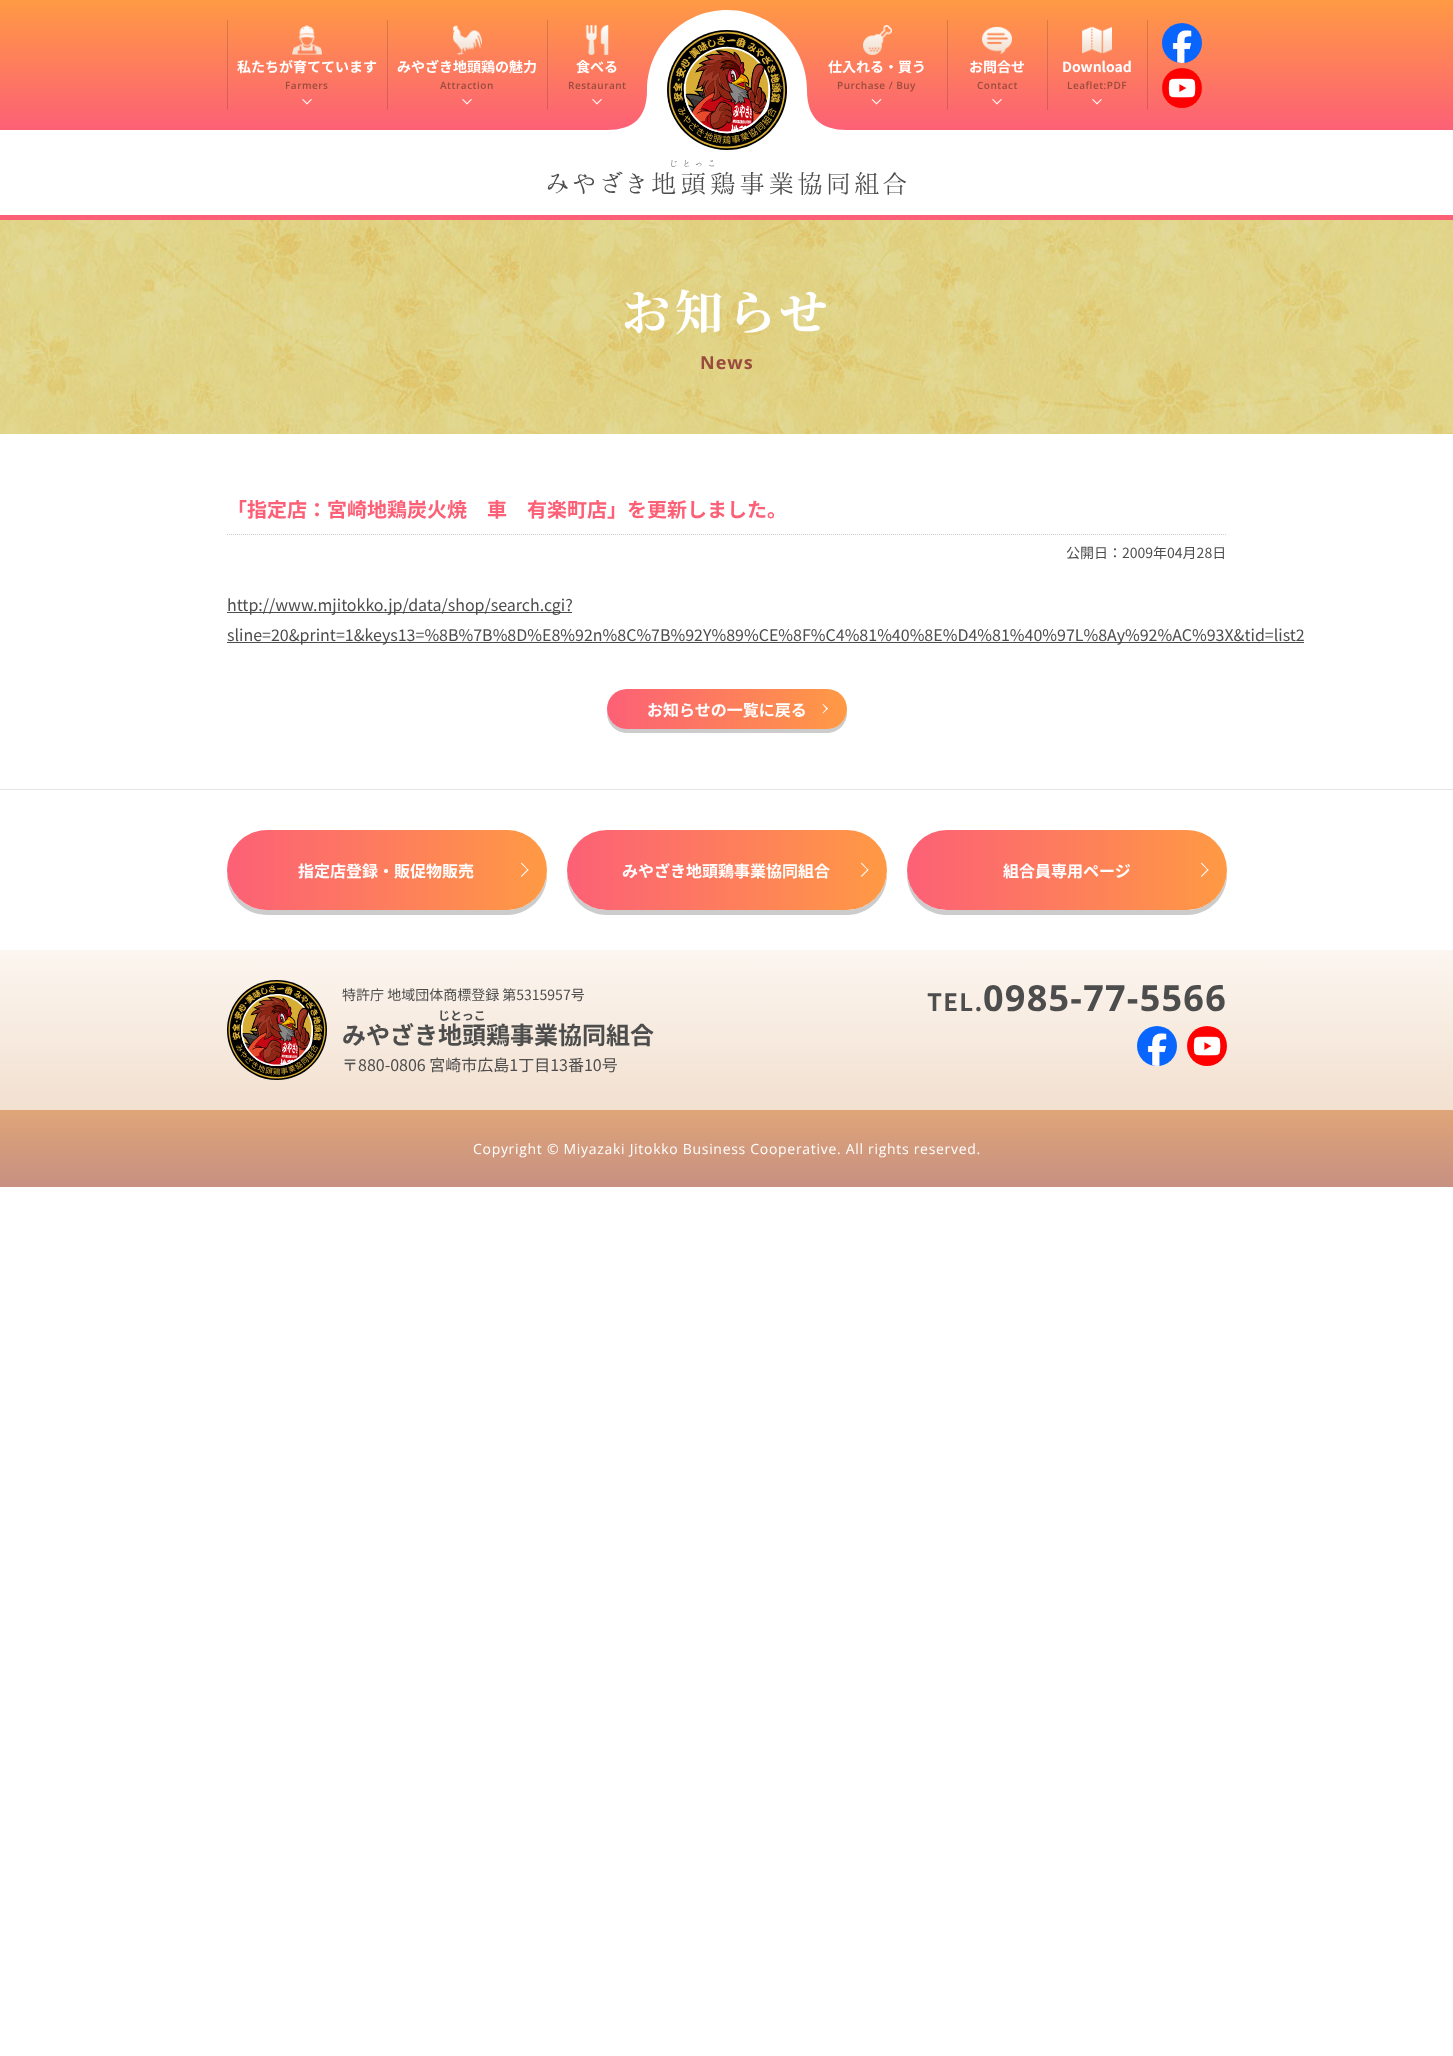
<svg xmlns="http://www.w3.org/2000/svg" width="1453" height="2056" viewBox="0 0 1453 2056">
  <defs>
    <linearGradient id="g1" gradientUnits="userSpaceOnUse" x1="727" y1="0" x2="727" y2="130"><stop offset="0" stop-color="#ff9a44"/><stop offset="1" stop-color="#fc6076"/></linearGradient>
    <linearGradient id="g2" gradientUnits="userSpaceOnUse" x1="727" y1="0" x2="727" y2="130"><stop offset="0" stop-color="#d9833a"/><stop offset="1" stop-color="#d65264"/></linearGradient>
    <linearGradient id="g3" gradientUnits="userSpaceOnUse" x1="607" y1="709" x2="847" y2="709"><stop offset="0" stop-color="#fc6076"/><stop offset="1" stop-color="#ff9a44"/></linearGradient>
    <linearGradient id="g4" gradientUnits="userSpaceOnUse" x1="227" y1="870" x2="547" y2="870"><stop offset="0" stop-color="#fc6076"/><stop offset="1" stop-color="#ff9a44"/></linearGradient>
    <linearGradient id="g5" gradientUnits="userSpaceOnUse" x1="567" y1="870" x2="887" y2="870"><stop offset="0" stop-color="#fc6076"/><stop offset="1" stop-color="#ff9a44"/></linearGradient>
    <linearGradient id="g6" gradientUnits="userSpaceOnUse" x1="907" y1="870" x2="1227" y2="870"><stop offset="0" stop-color="#fc6076"/><stop offset="1" stop-color="#ff9a44"/></linearGradient>
    <linearGradient id="g7" gradientUnits="userSpaceOnUse" x1="727" y1="950" x2="727" y2="1110"><stop offset="0" stop-color="#fcf6f0"/><stop offset="1" stop-color="#f2e0d0"/></linearGradient>
    <linearGradient id="g8" gradientUnits="userSpaceOnUse" x1="727" y1="1110" x2="727" y2="1187"><stop offset="0" stop-color="#dfa579"/><stop offset="1" stop-color="#c79081"/></linearGradient>
  </defs>
  <rect width="100%" height="100%" fill="#fff"/>
  <path d="M0 215h1453v5H0z" fill="#fc6076"/>
  <path d="M0 0h1453v130H0z" fill="url(#g1)"/>
  <path d="M607 130C634 130 647 117 647 90C647 46 683 10 727 10C771 10 807 46 807 90C807 117 820 130 847 130Z" fill="#fff"/>
  <image x="667" y="30" width="120" height="120" href="img/1.png"/>
  <image x="547" y="160" width="359" height="35" href="img/2.png"/>
  <path d="M1147 20h1v90H1147z" fill="url(#g2)"/>
  <path d="M1047 20h1v90H1047z" fill="url(#g2)"/>
  <path d="M947 20h1v90H947z" fill="url(#g2)"/>
  <path d="M547 20h1v90H547z" fill="url(#g2)"/>
  <path d="M387 20h1v90H387z" fill="url(#g2)"/>
  <path d="M227 20h1v90H227z" fill="url(#g2)"/>
  <image x="292" y="25" width="30" height="30" href="img/3.png"/>
  <path d="M311 99L312 99.5L307 104.5L306.5 103.5Z" fill="#fff"/>
  <path d="M303 99L307.5 103.5L307 104.5L302 99.5Z" fill="#fff"/>
  <image x="453" y="25" width="29" height="30" href="img/4.png"/>
  <path d="M471 99L472 99.5L467 104.5L466.5 103.5Z" fill="#fff"/>
  <path d="M463 99L467.5 103.5L467 104.5L462 99.5Z" fill="#fff"/>
  <image x="585" y="25" width="24" height="30" href="img/5.png"/>
  <path d="M601 99L602 99.5L597 104.5L596.5 103.5Z" fill="#fff"/>
  <path d="M593 99L597.5 103.5L597 104.5L592 99.5Z" fill="#fff"/>
  <image x="863" y="25" width="29" height="30" href="img/6.png"/>
  <path d="M880.5 99L881.5 99.5L876.5 104.5L876 103.5Z" fill="#fff"/>
  <path d="M872.5 99L877 103.5L876.5 104.5L871.5 99.5Z" fill="#fff"/>
  <image x="982" y="26" width="30" height="28" href="img/7.png"/>
  <path d="M1001 99L1002 99.5L997 104.5L996.5 103.5Z" fill="#fff"/>
  <path d="M993 99L997.5 103.5L997 104.5L992 99.5Z" fill="#fff"/>
  <image x="1082" y="26" width="30" height="28" href="img/8.png"/>
  <path d="M1101 99L1102 99.5L1097 104.5L1096.5 103.5Z" fill="#fff"/>
  <path d="M1093 99L1097.5 103.5L1097 104.5L1092 99.5Z" fill="#fff"/>
  <image x="1162" y="23" width="40" height="40" href="img/9.png"/>
  <image x="1162" y="68" width="40" height="40" href="img/10.png"/>
  <image x="0" y="220" width="1453" height="214" href="img/11.png"/>
  <path d="M227 534.5H1227" fill="none" stroke="#ccc" stroke-dasharray="1 1"/>
  <path d="M227 612h345v1H227z" fill="#4d4d4d"/>
  <path d="M227 642h1077v1H227z" fill="#4d4d4d"/>
  <path d="M607 711V713C607 724 616 733 627 733H827C838 733 847 724 847 713V711C846 721 837 729 827 729H627C617 729 608 721 607 711Z" fill="#ccc"/>
  <rect x="607" y="689" width="240" height="40" rx="20" fill="url(#g3)"/>
  <path d="M822.5 704.5L823 704L828 708.5L827 709.5Z" fill="#fff"/>
  <path d="M822.5 713L827 708L828 708.5L823 713.5Z" fill="#fff"/>
  <path d="M0 789h1453v1H0z" fill="#e5e5e5"/>
  <path d="M227 872V875C227 897 245 915 267 915H507C529 915 547 897 547 875V872C546 893 528 910 507 910H267C246 910 228 893 227 872Z" fill="#ccc"/>
  <rect x="227" y="830" width="320" height="80" rx="40" fill="url(#g4)"/>
  <path d="M521 863.5L521.5 862.5L528.5 870L528 870.5Z" fill="#fff"/>
  <path d="M521 876L528 869L528.5 870L521.5 877Z" fill="#fff"/>
  <path d="M567 872V875C567 897 585 915 607 915H847C869 915 887 897 887 875V872C886 893 868 910 847 910H607C586 910 568 893 567 872Z" fill="#ccc"/>
  <rect x="567" y="830" width="320" height="80" rx="40" fill="url(#g5)"/>
  <path d="M861 863.5L861.5 862.5L868.5 870L868 870.5Z" fill="#fff"/>
  <path d="M861 876L868 869L868.5 870L861.5 877Z" fill="#fff"/>
  <path d="M907 872V875C907 897 925 915 947 915H1187C1209 915 1227 897 1227 875V872C1226 893 1208 910 1187 910H947C926 910 908 893 907 872Z" fill="#ccc"/>
  <rect x="907" y="830" width="320" height="80" rx="40" fill="url(#g6)"/>
  <path d="M1201 863.5L1201.5 862.5L1208.5 870L1208 870.5Z" fill="#fff"/>
  <path d="M1201 876L1208 869L1208.5 870L1201.5 877Z" fill="#fff"/>
  <path d="M0 950h1453v160H0z" fill="url(#g7)"/>
  <image x="227" y="980" width="100" height="100" href="img/12.png"/>
  <image x="1137" y="1026" width="40" height="40" href="img/13.png"/>
  <image x="1187" y="1026" width="40" height="40" href="img/14.png"/>
  <path d="M0 1110h1453v77H0z" fill="url(#g8)"/>
  <text x="237" y="72" font-family="Noto Sans JP" font-size="14" font-weight="bold" fill="#fff">私たちが育てています</text>
  <text x="285" y="89" font-family="Open Sans" font-size="10" font-weight="600" letter-spacing="0.5" fill="#994c3d">Farmers</text>
  <text x="397" y="72" font-family="Noto Sans JP" font-size="14" font-weight="bold" fill="#fff">みやざき地頭鶏の魅力</text>
  <text x="440" y="89" font-family="Open Sans" font-size="10" font-weight="600" letter-spacing="0.5" fill="#994c3d">Attraction</text>
  <text x="576" y="72" font-family="Noto Sans JP" font-size="14" font-weight="bold" fill="#fff">食べる</text>
  <text x="568" y="89" font-family="Open Sans" font-size="10" font-weight="600" letter-spacing="0.5" fill="#994c3d">Restaurant</text>
  <text x="828" y="72" font-family="Noto Sans JP" font-size="14" font-weight="bold" fill="#fff">仕入れる・買う</text>
  <text x="837" y="89" font-family="Open Sans" font-size="10" font-weight="600" letter-spacing="0.5" fill="#994c3d">Purchase / Buy</text>
  <text x="969" y="72" font-family="Noto Sans JP" font-size="14" font-weight="bold" fill="#fff">お問合せ</text>
  <text x="977" y="89" font-family="Open Sans" font-size="10" font-weight="600" letter-spacing="0.5" fill="#994c3d">Contact</text>
  <text x="1062" y="72" font-family="Noto Sans JP" font-size="14" font-weight="bold" fill="#fff">Download</text>
  <text x="1067" y="89" font-family="Open Sans" font-size="10" font-weight="600" letter-spacing="0.5" fill="#994c3d">Leaflet:PDF</text>
  <text x="622" y="330" font-family="Noto Serif JP" font-size="48" font-weight="200" letter-spacing="5" fill="#fff">お知らせ</text>
  <text x="700" y="369" font-family="Open Sans" font-size="18" font-weight="bold" letter-spacing="1" fill="#994c3d">News</text>
  <text x="227" y="517" font-family="Noto Sans JP" font-size="20" font-weight="bold" fill="#fc6076">「指定店：宮崎地鶏炭火焼　車　有楽町店」を更新しました。</text>
  <text x="1066" y="558" font-family="Noto Sans JP" font-size="14" fill="#4d4d4d">公開日：2009年04月28日</text>
  <g font-family="Noto Sans JP" font-size="16" fill="#4d4d4d">
    <text x="227" y="611">http://www.mjitokko.jp/data/shop/search.cgi?</text>
    <text x="227" y="641">sline=20&amp;print=1&amp;keys13=%8B%7B%8D%E8%92n%8C%7B%92Y%89%CE%8F%C4%81%40%8E%D4%81%40%97L%8Ay%92%AC%93X&amp;tid=list2</text>
  </g>
  <g font-family="Noto Sans JP" font-size="16" font-weight="bold" fill="#fff">
    <text x="647" y="716">お知らせの一覧に戻る</text>
    <text x="298" y="877">指定店登録・販促物販売</text>
    <text x="622" y="877">みやざき地頭鶏事業協同組合</text>
    <text x="1003" y="877">組合員専用ページ</text>
  </g>
  <text x="342" y="1000" font-family="Noto Sans JP" font-size="14" fill="#4d4d4d">特許庁 地域団体商標登録 第5315957号</text>
  <text x="438" y="1020" font-family="Noto Sans JP" font-size="12" font-weight="bold" fill="#4d4d4d">じとっこ</text>
  <text x="342" y="1044" font-family="Noto Sans JP" font-size="24" font-weight="bold" fill="#4d4d4d">みやざき地頭鶏事業協同組合</text>
  <text x="342" y="1071" font-family="Noto Sans JP" font-size="16" fill="#4d4d4d">〒880-0806 宮崎市広島1丁目13番10号</text>
  <text x="927" y="1011" font-family="Noto Sans JP" font-size="24" font-weight="bold" letter-spacing="1.25" fill="#4d4d4d">TEL.</text>
  <text x="983" y="1011" font-family="Open Sans" font-size="36" font-weight="bold" letter-spacing="1.25" fill="#4d4d4d">0985-77-5566</text>
  <text x="473" y="1154" font-family="Open Sans" font-size="14" letter-spacing="0.7" fill="#fff">Copyright © Miyazaki Jitokko Business Cooperative. All rights reserved.</text>
</svg>
